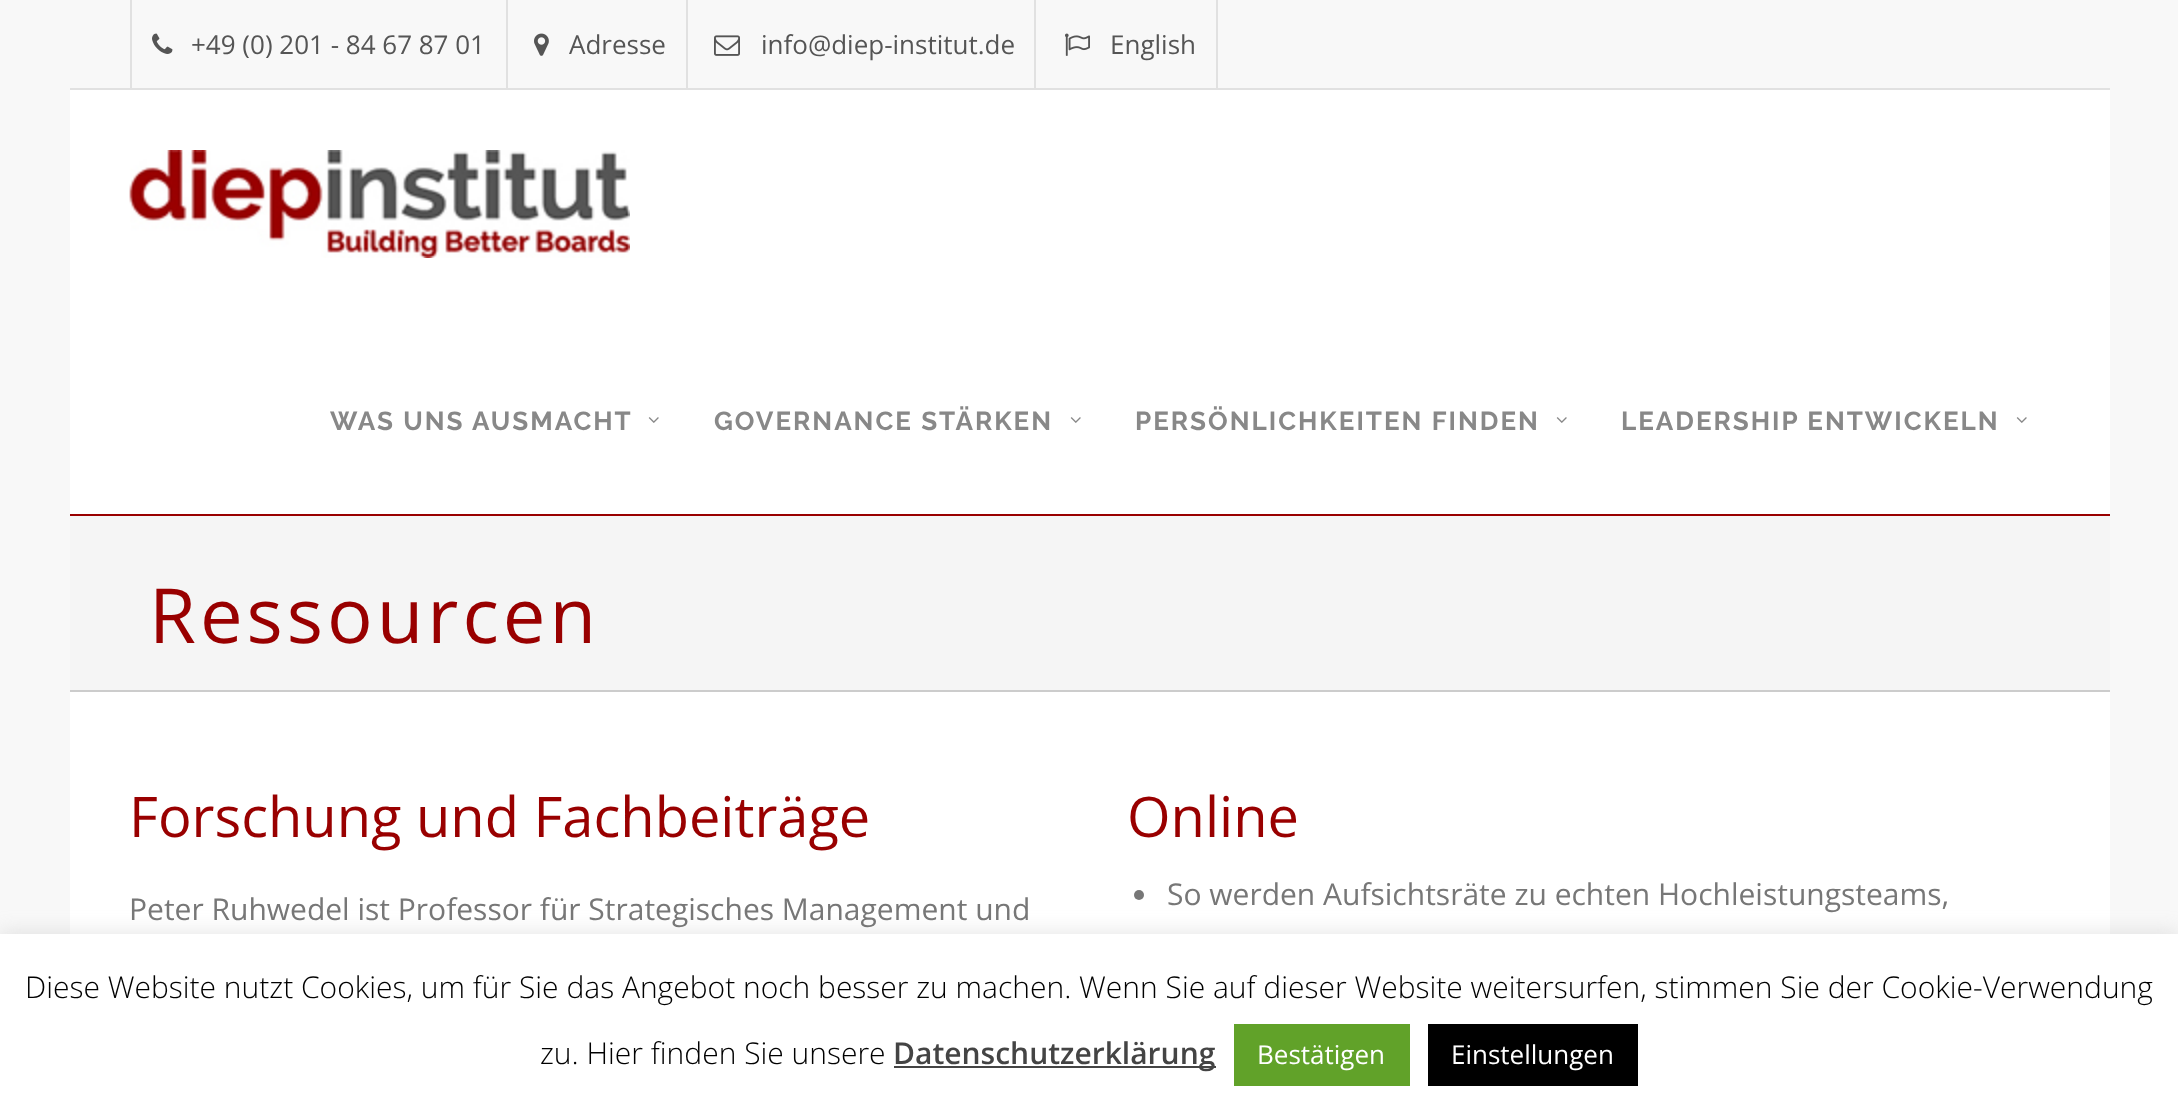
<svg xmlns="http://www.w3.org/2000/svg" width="2178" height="1110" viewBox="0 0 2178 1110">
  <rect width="100%" height="100%" fill="#f8f8f8"/>
  <path d="M70 90h2040v844H70z" fill="#fff"/>
  <path d="M70 88h2040v2H70z" fill="#e1e1e1"/>
  <path d="M130 0h2v88H130z" fill="#e1e1e1"/>
  <path d="M506 0h2v88H506z" fill="#e1e1e1"/>
  <image x="152" y="33" width="21" height="21" href="img/1.png"/>
  <path d="M686 0h2v88H686z" fill="#e1e1e1"/>
  <image x="534" y="33" width="15" height="23" href="img/2.png"/>
  <path d="M1034 0h2v88H1034z" fill="#e1e1e1"/>
  <image x="714" y="35" width="26" height="21" href="img/3.png"/>
  <path d="M1216 0h2v88H1216z" fill="#e1e1e1"/>
  <image x="1065" y="33" width="25" height="23" href="img/4.png"/>
  <path d="M70 514h2040v2H70z" fill="#900"/>
  <image x="129" y="150" width="501" height="108" href="img/5.png"/>
  <image x="648" y="417" width="11" height="6" href="img/6.png"/>
  <image x="1070" y="417" width="11" height="6" href="img/6.png"/>
  <image x="1556" y="417" width="11" height="6" href="img/6.png"/>
  <image x="2016" y="417" width="11" height="6" href="img/6.png"/>
  <path d="M70 516h2040v174H70z" fill="#f5f5f5"/>
  <path d="M70 690h2040v2H70z" fill="#ccc"/>
  <circle cx="1139" cy="895" r="5" fill="#777"/>
  <path d="M0 932h2178v176H0z" fill="#acabab4d" filter="blur(10px)"/>
  <path d="M0 934h2178v176H0z" fill="#fff"/>
  <path d="M894 1066h322v2H894z" fill="#444"/>
  <path d="M1234 1024h176v62H1234z" fill="#61a229"/>
  <path d="M1428 1024h210v62H1428z" fill="#000"/>
  <g font-family="Open Sans" font-size="26" fill="#555">
    <text x="191" y="54">+49 (0) 201 - 84 67 87 01</text>
    <text x="569" y="54">Adresse</text>
    <text x="761" y="54">info@diep-institut.de</text>
    <text x="1110" y="54">English</text>
  </g>
  <g font-family="Raleway" font-size="26" font-weight="bold" letter-spacing="2" fill="#888">
    <text x="330" y="430">WAS UNS AUSMACHT</text>
    <text x="714" y="430">GOVERNANCE STÄRKEN</text>
    <text x="1135" y="430">PERSÖNLICHKEITEN FINDEN</text>
    <text x="1621" y="430">LEADERSHIP ENTWICKELN</text>
  </g>
  <text x="149" y="643" font-family="Open Sans" font-size="76" letter-spacing="4" fill="#900">Ressourcen</text>
  <text x="129" y="837" font-family="Open Sans" font-size="56" fill="#900">Forschung und Fachbeiträge</text>
  <text x="129" y="920" font-family="Open Sans" font-size="30" fill="#777">Peter Ruhwedel ist Professor für Strategisches Management und</text>
  <text x="1127" y="837" font-family="Open Sans" font-size="56" fill="#900">Online</text>
  <text x="1167" y="905" font-family="Open Sans" font-size="30" fill="#777">So werden Aufsichtsräte zu echten Hochleistungsteams,</text>
  <g font-family="Open Sans" font-size="30" font-weight="300" fill="#000">
    <text x="25" y="998">Diese Website nutzt Cookies, um für Sie das Angebot noch besser zu machen. Wenn Sie auf dieser Website weitersurfen, stimmen Sie der Cookie-Verwendung</text>
    <text x="540" y="1064">zu. Hier finden Sie unsere</text>
  </g>
  <text x="893" y="1064" font-family="Open Sans" font-size="30" font-weight="600" fill="#444">Datenschutzerklärung</text>
  <g font-family="Open Sans" font-size="26" fill="#fff">
    <text x="1257" y="1064">Bestätigen</text>
    <text x="1451" y="1064">Einstellungen</text>
  </g>
</svg>
